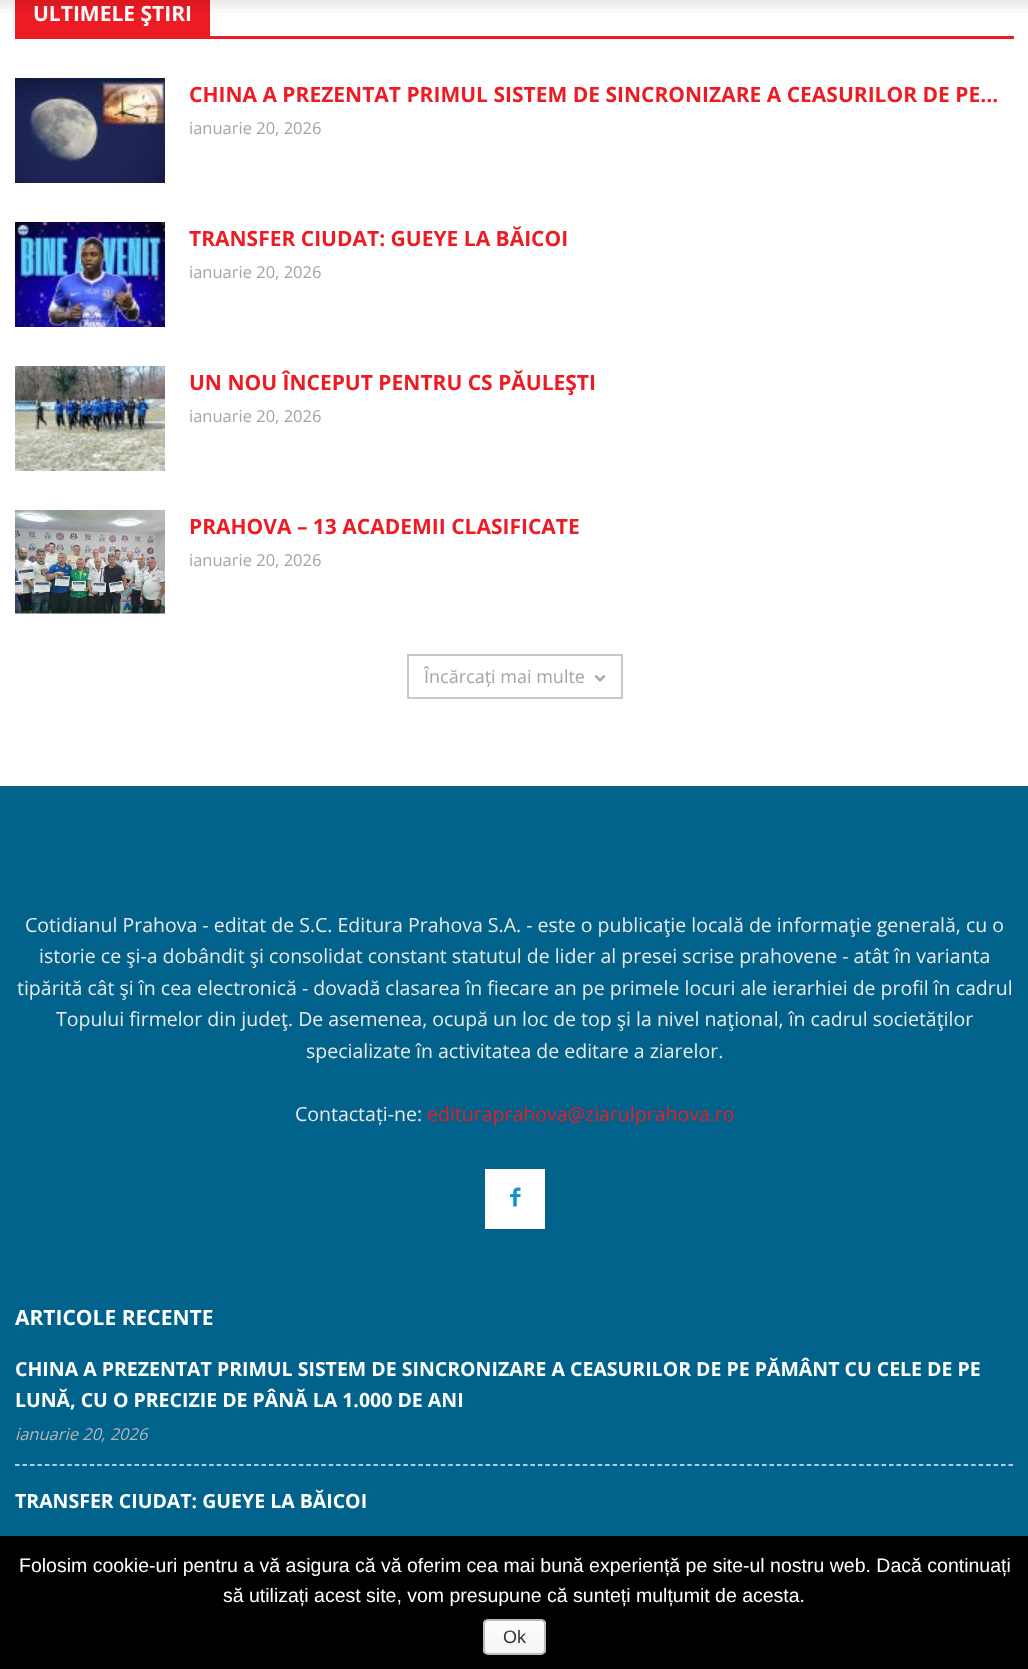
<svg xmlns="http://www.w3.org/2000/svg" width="1028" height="1669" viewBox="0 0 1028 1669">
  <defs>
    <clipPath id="clip1"><rect x="483" y="1619" width="63" height="36" rx="5"/></clipPath>
    <linearGradient id="g1" gradientUnits="userSpaceOnUse" x1="515" y1="1620" x2="515" y2="1653"><stop offset="0" stop-color="#fefefe"/><stop offset="1" stop-color="#f4f4f4"/></linearGradient>
  </defs>
  <rect width="100%" height="100%" fill="#fff"/>
  <path d="M15 36h999v3H15z" fill="#ed1b24"/>
  <path d="M15 0h195v36H15z" fill="#ed1b24"/>
  <image x="15" y="78" width="150" height="105" href="img/2.png"/>
  <image x="15" y="222" width="150" height="105" href="img/3.png"/>
  <image x="15" y="366" width="150" height="105" href="img/4.png"/>
  <image x="15" y="510" width="150" height="104" href="img/5.png"/>
  <path d="M408 655h214v43H408z" fill="none" stroke="#c9c9c9" stroke-width="2"/>
  <image x="594" y="675" width="12" height="7" href="img/6.png"/>
  <path d="M0 786h1028v750H0z" fill="#01628c"/>
  <path d="M485 1169h60v60H485z" fill="#fff"/>
  <image x="510" y="1187" width="11" height="20" href="img/7.png"/>
  <path d="M15 1465H1014" fill="none" stroke="#f1f1f1" stroke-width="1.5" stroke-dasharray="4.5 2.97"/>
  <path d="M0 1536h1028v133H0z" fill="#000"/>
  <g clip-path="url(#clip1)">
    <path d="M483 1620h63v33H483z" fill="url(#g1)"/>
  </g>
  <rect x="484" y="1620" width="61" height="34" rx="4" fill="none" stroke="#bbb" stroke-width="2"/>
  <text x="33" y="21" font-family="Open Sans" font-size="21" font-weight="bold" fill="#fff">ULTIMELE ŞTIRI</text>
  <image x="0" y="0" width="1028" height="13" href="img/1.png"/>
  <text x="189" y="102" font-family="Open Sans" font-size="21" font-weight="bold" fill="#ed1b24">CHINA A PREZENTAT PRIMUL SISTEM DE SINCRONIZARE A CEASURILOR DE PE...</text>
  <text x="189" y="134" font-family="Open Sans" font-size="16.5" fill="#a5a5a5">ianuarie 20, 2026</text>
  <text x="189" y="246" font-family="Open Sans" font-size="21" font-weight="bold" fill="#ed1b24">TRANSFER CIUDAT: GUEYE LA BĂICOI</text>
  <text x="189" y="278" font-family="Open Sans" font-size="16.5" fill="#a5a5a5">ianuarie 20, 2026</text>
  <text x="189" y="390" font-family="Open Sans" font-size="21" font-weight="bold" fill="#ed1b24">UN NOU ÎNCEPUT PENTRU CS PĂULEŞTI</text>
  <text x="189" y="422" font-family="Open Sans" font-size="16.5" fill="#a5a5a5">ianuarie 20, 2026</text>
  <text x="189" y="534" font-family="Open Sans" font-size="21" font-weight="bold" fill="#ed1b24">PRAHOVA – 13 ACADEMII CLASIFICATE</text>
  <text x="189" y="566" font-family="Open Sans" font-size="16.5" fill="#a5a5a5">ianuarie 20, 2026</text>
  <text x="424" y="683" font-family="Open Sans" font-size="18" fill="#a5a5a5">Încărcați mai multe</text>
  <g font-family="Open Sans" font-size="19.5" fill="#eaeaea">
    <text x="25" y="932">Cotidianul Prahova - editat de S.C. Editura Prahova S.A. - este o publicaţie locală de informaţie generală, cu o</text>
    <text x="39" y="963">istorie ce şi-a dobândit şi consolidat constant statutul de lider al presei scrise prahovene - atât în varianta</text>
    <text x="17" y="995">tipărită cât şi în cea electronică - dovadă clasarea în fiecare an pe primele locuri ale ierarhiei de profil în cadrul</text>
    <text x="56" y="1026">Topului firmelor din judeţ. De asemenea, ocupă un loc de top şi la nivel naţional, în cadrul societăţilor</text>
    <text x="306" y="1058">specializate în activitatea de editare a ziarelor.</text>
    <text x="295" y="1121">Contactați-ne:</text>
  </g>
  <text x="427" y="1121" font-family="Open Sans" font-size="19.5" fill="#ed1b24">edituraprahova@ziarulprahova.ro</text>
  <text x="15" y="1325" font-family="Open Sans" font-size="21" font-weight="bold" fill="#fff">ARTICOLE RECENTE</text>
  <g font-family="Open Sans" font-size="19.5" font-weight="bold" fill="#fff">
    <text x="15" y="1376">CHINA A PREZENTAT PRIMUL SISTEM DE SINCRONIZARE A CEASURILOR DE PE PĂMÂNT CU CELE DE PE</text>
    <text x="15" y="1407">LUNĂ, CU O PRECIZIE DE PÂNĂ LA 1.000 DE ANI</text>
  </g>
  <text x="15" y="1440" font-family="Open Sans" font-size="16.5" font-style="italic" fill="#b5b5b5">ianuarie 20, 2026</text>
  <text x="15" y="1508" font-family="Open Sans" font-size="19.5" font-weight="bold" fill="#fff">TRANSFER CIUDAT: GUEYE LA BĂICOI</text>
  <g font-family="Liberation Sans" font-size="19.5" fill="#fff">
    <text x="19" y="1572">Folosim cookie-uri pentru a vă asigura că vă oferim cea mai bună experiență pe site-ul nostru web. Dacă continuați</text>
    <text x="223" y="1602">să utilizați acest site, vom presupune că sunteți mulțumit de acesta.</text>
  </g>
  <text x="503" y="1643" font-family="Liberation Sans" font-size="18" fill="#333">Ok</text>
</svg>
